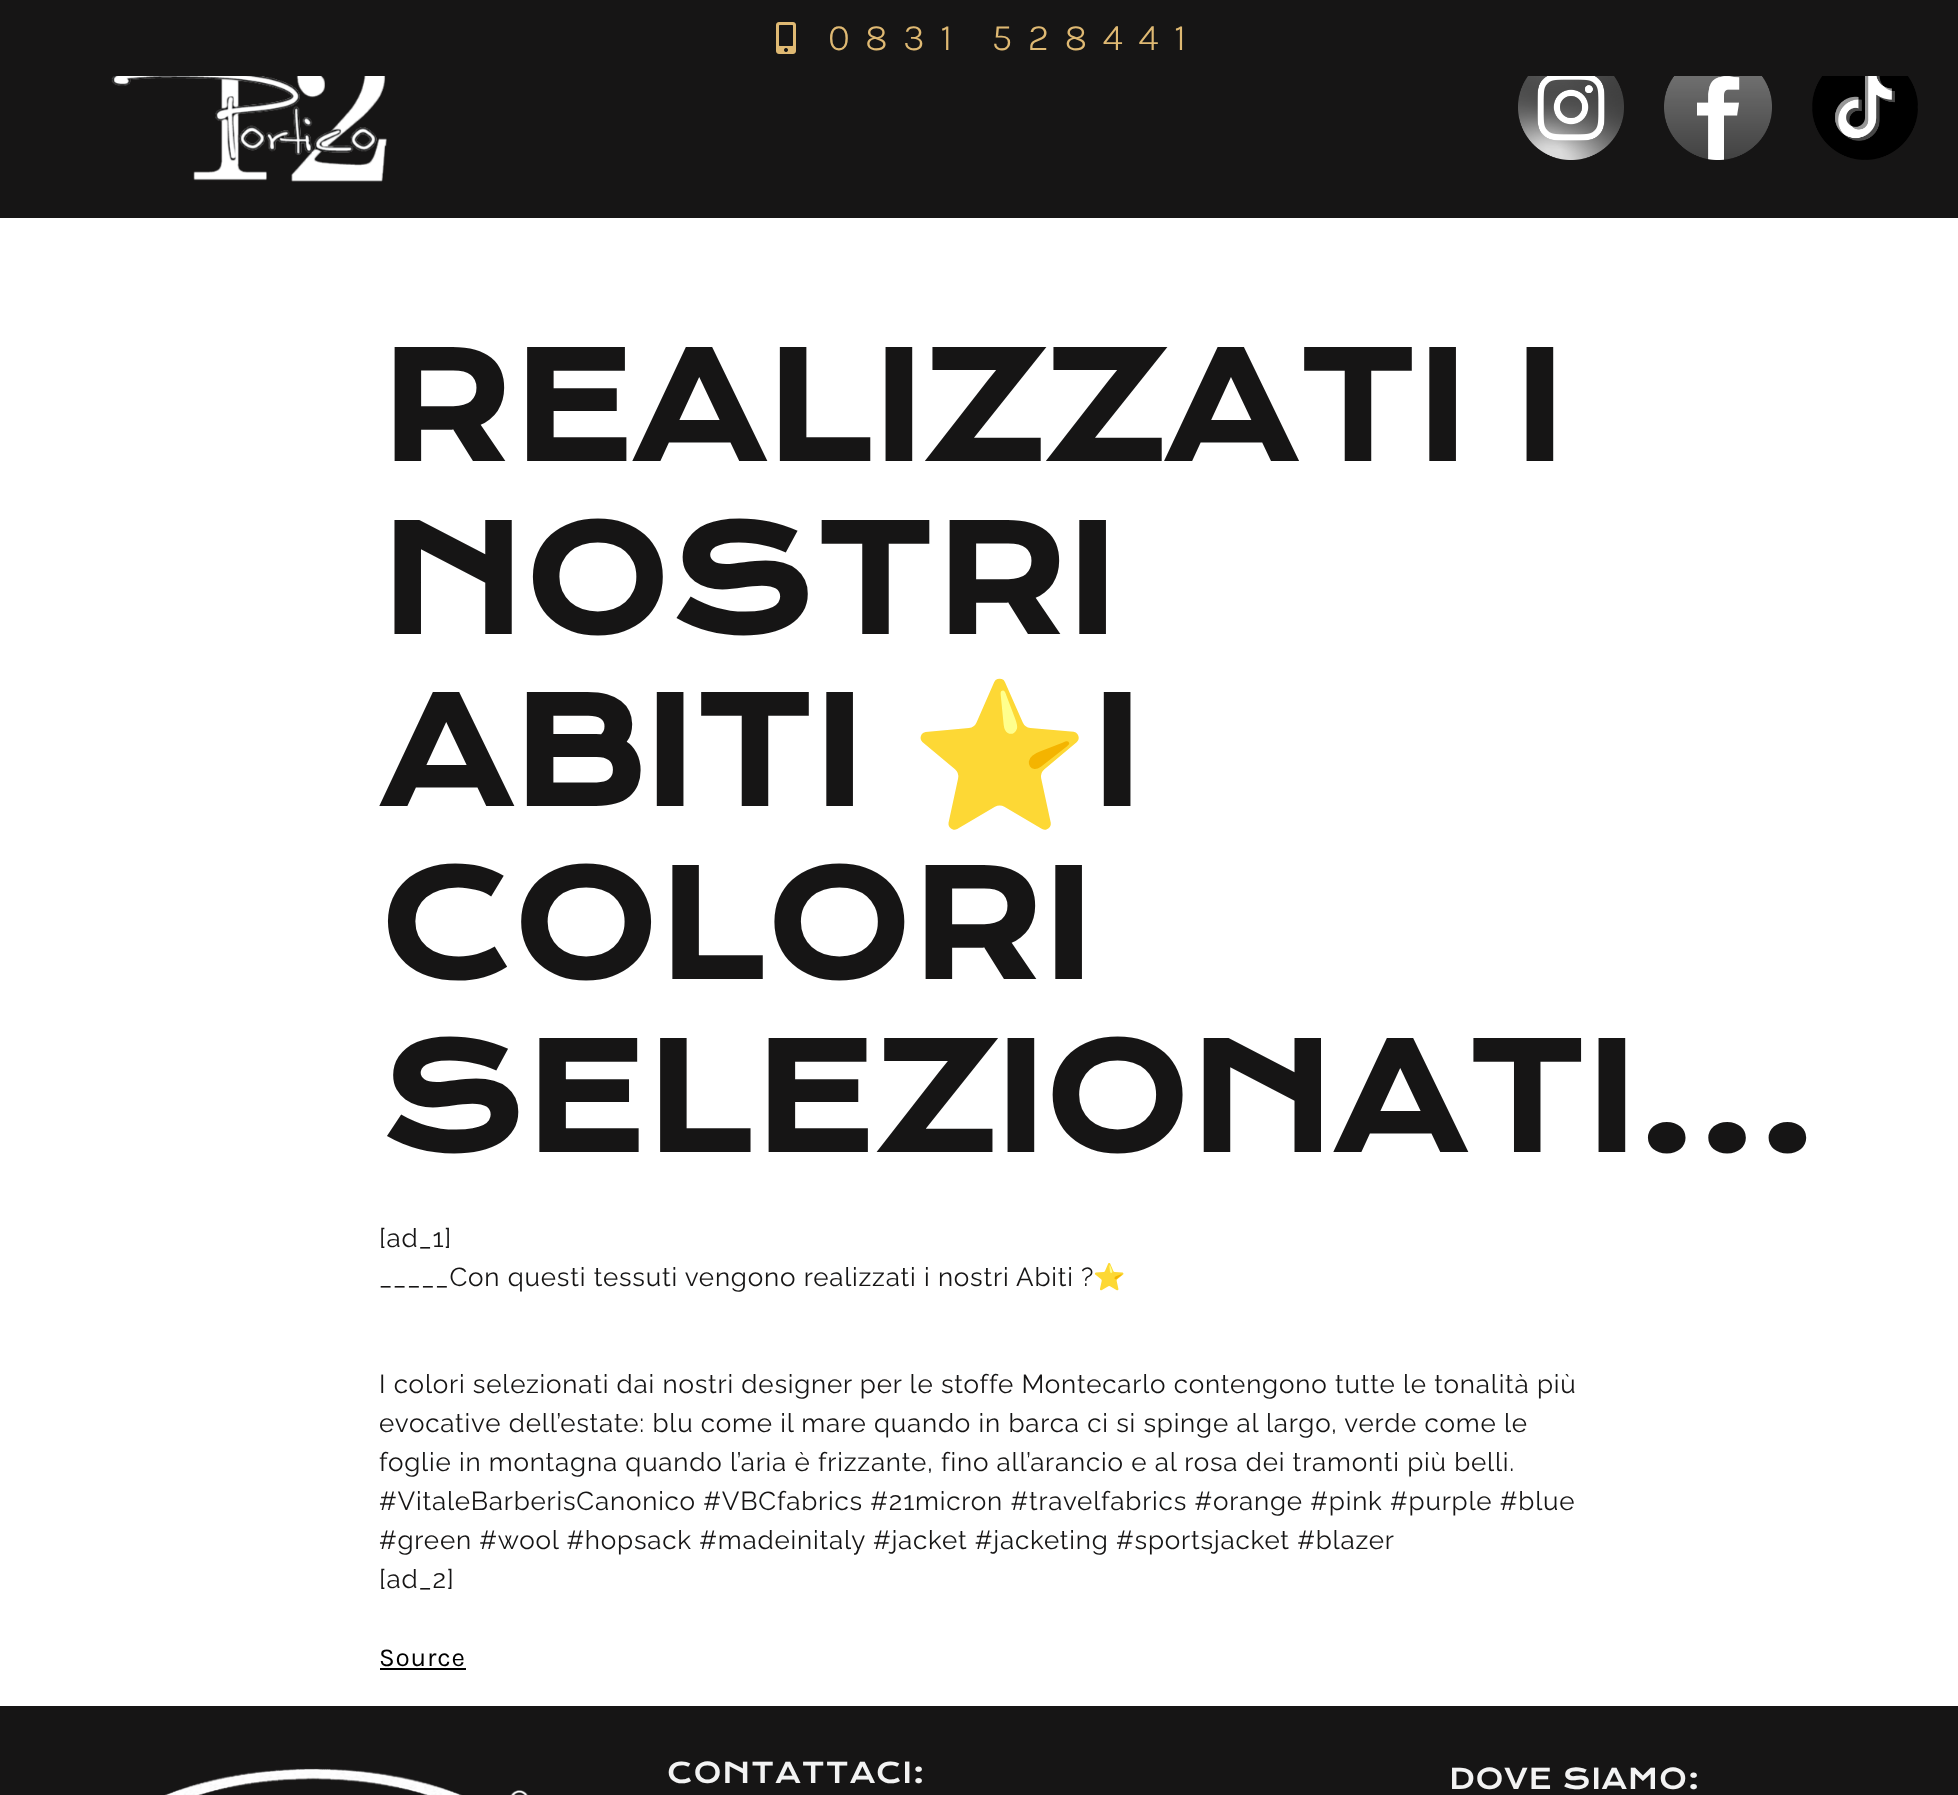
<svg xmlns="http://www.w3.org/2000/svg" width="1958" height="1795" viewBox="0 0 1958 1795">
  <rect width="100%" height="100%" fill="#fff"/>
  <path d="M0 0h1958v218H0z" fill="#161515"/>
  <image x="111" y="76" width="276" height="106" href="img/1.png"/>
  <image x="1518" y="76" width="106" height="84" href="img/2.png"/>
  <image x="1664" y="76" width="108" height="84" href="img/3.png"/>
  <image x="1812" y="76" width="106" height="84" href="img/4.png"/>
  <image x="776" y="22" width="20" height="32" href="img/5.png"/>
  <path d="M380 1668h86v2H380z" fill="#000"/>
  <path d="M0 1706h1958v89H0z" fill="#161515"/>
  <image x="164" y="1768" width="364" height="27" href="img/6.png"/>
  <text x="828" y="50" font-family="Karla" font-size="38" font-weight="300" letter-spacing="15.25" fill="#dfb973">0831 528441</text>
  <g font-family="Krona One" font-size="144" font-weight="bold" letter-spacing="0.8" fill="#161515">
    <text x="379" y="461">REALIZZATI I</text>
    <text x="379" y="634">NOSTRI</text>
    <text x="379" y="806">ABITI</text>
  </g>
  <text x="910" y="806" font-family="Noto Color Emoji" font-size="144" font-weight="bold" letter-spacing="0.8" fill="#161515">⭐️</text>
  <g font-family="Krona One" font-size="144" font-weight="bold" letter-spacing="0.8" fill="#161515">
    <text x="1091" y="806">I</text>
    <text x="379" y="979">COLORI</text>
    <text x="379" y="1152">SELEZIONATI…</text>
  </g>
  <g font-family="Raleway" font-size="26" letter-spacing="0.8" fill="#161515">
    <text x="379" y="1247">[ad_1]</text>
    <text x="379" y="1286">_____Con questi tessuti vengono realizzati i nostri Abiti ?</text>
  </g>
  <text x="1093" y="1286" font-family="Noto Color Emoji" font-size="26" letter-spacing="0.8" fill="#161515">⭐️</text>
  <g font-family="Raleway" font-size="26" letter-spacing="0.8" fill="#161515">
    <text x="379" y="1393">I colori selezionati dai nostri designer per le stoffe Montecarlo contengono tutte le tonalità più</text>
    <text x="379" y="1432">evocative dell’estate: blu come il mare quando in barca ci si spinge al largo, verde come le</text>
    <text x="379" y="1471">foglie in montagna quando l’aria è frizzante, fino all’arancio e al rosa dei tramonti più belli.</text>
    <text x="379" y="1510">#VitaleBarberisCanonico #VBCfabrics #21micron #travelfabrics #orange #pink #purple #blue</text>
    <text x="379" y="1549">#green #wool #hopsack #madeinitaly #jacket #jacketing #sportsjacket #blazer</text>
    <text x="379" y="1588">[ad_2]</text>
  </g>
  <text x="379" y="1666" font-family="Karla" font-size="26" letter-spacing="0.8" fill="#000">Source</text>
  <g font-family="Krona One" font-size="28" letter-spacing="0.8" fill="#f3f3f3">
    <text x="667" y="1783">CONTATTACI:</text>
    <text x="1449" y="1789">DOVE SIAMO:</text>
  </g>
</svg>
